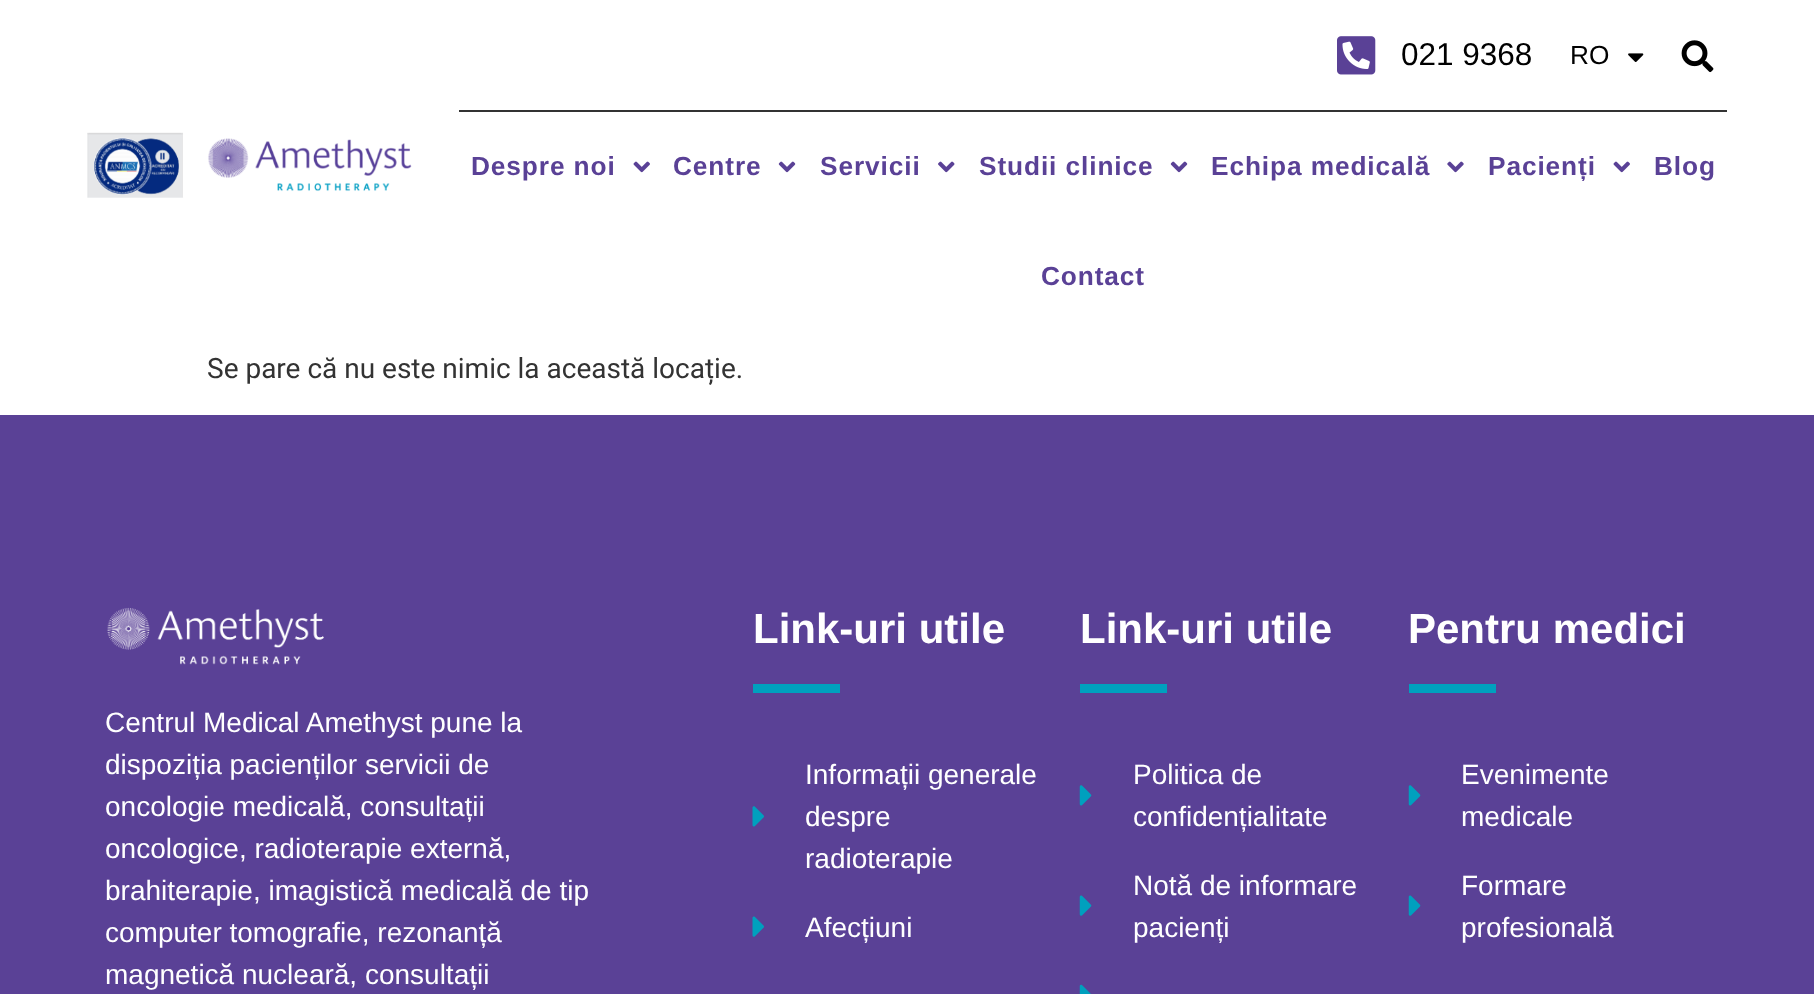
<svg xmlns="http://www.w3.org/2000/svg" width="1814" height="994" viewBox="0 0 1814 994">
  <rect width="100%" height="100%" fill="#fff"/>
  <image x="87" y="132" width="325" height="66" href="img/1.png"/>
  <path d="M459 110h1268v2H459z" fill="#333"/>
  <image x="1337" y="36" width="39" height="39" href="img/2.png"/>
  <image x="1628" y="53" width="16" height="9" href="img/3.png"/>
  <image x="1681" y="40" width="33" height="33" href="img/4.png"/>
  <image x="633" y="161" width="17" height="12" href="img/5.png"/>
  <image x="778" y="161" width="18" height="12" href="img/6.png"/>
  <image x="938" y="161" width="17" height="12" href="img/7.png"/>
  <image x="1170" y="161" width="18" height="12" href="img/6.png"/>
  <image x="1447" y="161" width="17" height="12" href="img/8.png"/>
  <image x="1613" y="161" width="17" height="12" href="img/5.png"/>
  <path d="M0 415h1814v579H0z" fill="#5a4196"/>
  <image x="107" y="607" width="217" height="58" href="img/9.png"/>
  <path d="M753 684h87v9H753z" fill="#00a0be"/>
  <image x="752" y="806" width="12" height="21" href="img/10.png"/>
  <image x="752" y="916" width="12" height="21" href="img/11.png"/>
  <path d="M1080 684h87v9H1080z" fill="#00a0be"/>
  <image x="1079" y="785" width="13" height="21" href="img/12.png"/>
  <image x="1079" y="895" width="13" height="21" href="img/13.png"/>
  <image x="1079" y="984" width="12" height="10" href="img/14.png"/>
  <path d="M1409 684h87v9H1409z" fill="#00a0be"/>
  <image x="1408" y="785" width="13" height="21" href="img/12.png"/>
  <image x="1408" y="895" width="13" height="21" href="img/13.png"/>
  <text x="1401" y="65" font-family="Liberation Sans" font-size="31.5" fill="#000">021 9368</text>
  <text x="1570" y="64" font-family="Liberation Sans" font-size="26.25" fill="#000">RO</text>
  <g font-family="Liberation Sans" font-size="26.25" font-weight="bold" letter-spacing="0.9" fill="#5a4196">
    <text x="471" y="175">Despre noi</text>
    <text x="673" y="175">Centre</text>
    <text x="820" y="175">Servicii</text>
    <text x="979" y="175">Studii clinice</text>
    <text x="1211" y="175">Echipa medicală</text>
    <text x="1488" y="175">Pacienți</text>
    <text x="1654" y="175">Blog</text>
    <text x="1041" y="285">Contact</text>
  </g>
  <text x="207" y="378" font-family="Roboto" font-size="28" fill="#333">Se pare că nu este nimic la această locație.</text>
  <g font-family="Liberation Sans" font-size="28" fill="#fff">
    <text x="105" y="732">Centrul Medical Amethyst pune la</text>
    <text x="105" y="774">dispoziția pacienților servicii de</text>
    <text x="105" y="816">oncologie medicală, consultații</text>
    <text x="105" y="858">oncologice, radioterapie externă,</text>
    <text x="105" y="900">brahiterapie, imagistică medicală de tip</text>
    <text x="105" y="942">computer tomografie, rezonanță</text>
    <text x="105" y="984">magnetică nucleară, consultații</text>
  </g>
  <text x="753" y="643" font-family="Liberation Sans" font-size="42" font-weight="bold" fill="#fff">Link-uri utile</text>
  <g font-family="Liberation Sans" font-size="28" fill="#fff">
    <text x="805" y="784">Informații generale</text>
    <text x="805" y="826">despre</text>
    <text x="805" y="868">radioterapie</text>
    <text x="805" y="937">Afecțiuni</text>
  </g>
  <text x="1080" y="643" font-family="Liberation Sans" font-size="42" font-weight="bold" fill="#fff">Link-uri utile</text>
  <g font-family="Liberation Sans" font-size="28" fill="#fff">
    <text x="1133" y="784">Politica de</text>
    <text x="1133" y="826">confidențialitate</text>
    <text x="1133" y="895">Notă de informare</text>
    <text x="1133" y="937">pacienți</text>
  </g>
  <text x="1408" y="643" font-family="Liberation Sans" font-size="42" font-weight="bold" fill="#fff">Pentru medici</text>
  <g font-family="Liberation Sans" font-size="28" fill="#fff">
    <text x="1461" y="784">Evenimente</text>
    <text x="1461" y="826">medicale</text>
    <text x="1461" y="895">Formare</text>
    <text x="1461" y="937">profesională</text>
  </g>
</svg>
